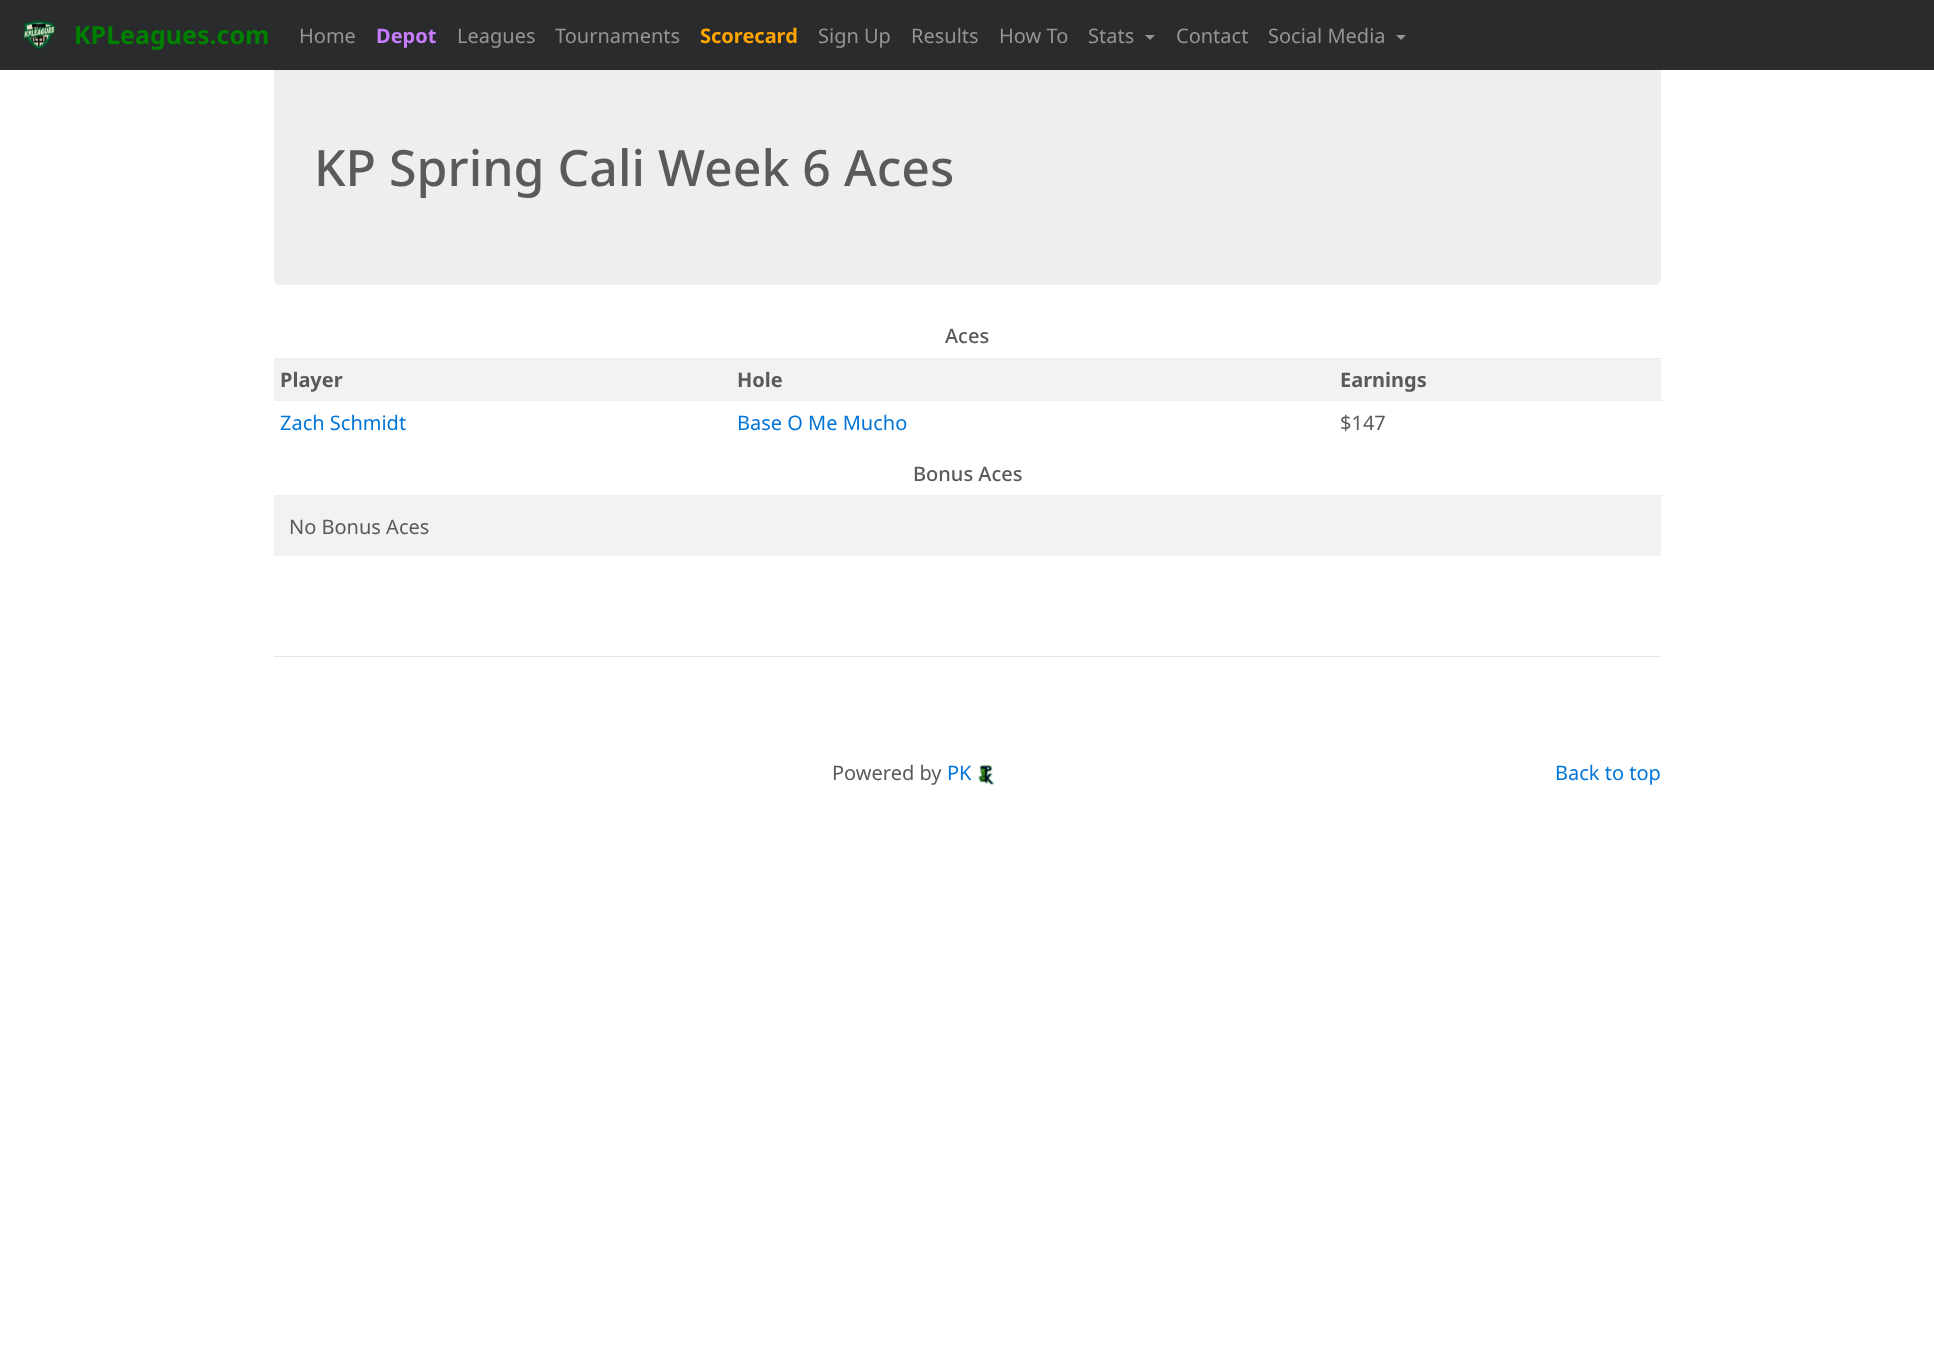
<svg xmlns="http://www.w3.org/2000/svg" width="1934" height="1357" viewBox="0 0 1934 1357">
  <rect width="100%" height="100%" fill="#fff"/>
  <rect x="274" y="60" width="1387" height="225" rx="6" fill="#eceeef"/>
  <path d="M0 0h1934v70H0z" fill="#292b2c"/>
  <image x="23" y="20" width="33" height="30" href="img/1.png"/>
  <path d="M1145 35H1155L1150 40Z" fill="#949596"/>
  <path d="M1396 35H1406L1401 40Z" fill="#949596"/>
  <path d="M274 359h1387v41H274z" fill="#f2f2f2"/>
  <path d="M274 358h1389v1H274z" fill="#eceeef"/>
  <path d="M274 400h1389v1H274z" fill="#eceeef"/>
  <path d="M274 496h1387v60H274z" fill="#f2f2f2"/>
  <path d="M274 495h1389v1H274z" fill="#eceeef"/>
  <path d="M274 656h1387v1H274z" fill="#e6e6e6"/>
  <image x="978" y="765" width="16" height="20" href="img/2.png"/>
  <text x="74" y="44" font-family="Noto Sans" font-size="25" font-weight="bold" fill="#008000">KPLeagues.com</text>
  <text x="299" y="43" font-family="Noto Sans" font-size="20" fill="#949596">Home</text>
  <text x="376" y="43" font-family="Noto Sans" font-size="20" font-weight="bold" fill="#c77dff">Depot</text>
  <g font-family="Noto Sans" font-size="20" fill="#949596">
    <text x="457" y="43">Leagues</text>
    <text x="555" y="43">Tournaments</text>
  </g>
  <text x="700" y="43" font-family="Noto Sans" font-size="20" font-weight="bold" fill="#ffa500">Scorecard</text>
  <g font-family="Noto Sans" font-size="20" fill="#949596">
    <text x="818" y="43">Sign Up</text>
    <text x="911" y="43">Results</text>
    <text x="999" y="43">How To</text>
    <text x="1088" y="43">Stats</text>
    <text x="1176" y="43">Contact</text>
    <text x="1268" y="43">Social Media</text>
  </g>
  <text x="314" y="186" font-family="Noto Sans" font-size="50" font-weight="500" fill="#5a5a5a">KP Spring Cali Week 6 Aces</text>
  <text x="945" y="343" font-family="Noto Sans" font-size="20" font-weight="500" fill="#5a5a5a">Aces</text>
  <g font-family="Noto Sans" font-size="20" font-weight="bold" fill="#5a5a5a">
    <text x="280" y="387">Player</text>
    <text x="737" y="387">Hole</text>
    <text x="1340" y="387">Earnings</text>
  </g>
  <g font-family="Noto Sans" font-size="20" fill="#0275d8">
    <text x="280" y="430">Zach Schmidt</text>
    <text x="737" y="430">Base O Me Mucho</text>
  </g>
  <text x="1340" y="430" font-family="Noto Sans" font-size="20" fill="#5a5a5a">$147</text>
  <text x="913" y="481" font-family="Noto Sans" font-size="20" font-weight="500" fill="#5a5a5a">Bonus Aces</text>
  <g font-family="Noto Sans" font-size="20" fill="#5a5a5a">
    <text x="289" y="534">No Bonus Aces</text>
    <text x="832" y="780">Powered by</text>
  </g>
  <g font-family="Noto Sans" font-size="20" fill="#0275d8">
    <text x="947" y="780">PK</text>
    <text x="1555" y="780">Back to top</text>
  </g>
</svg>
